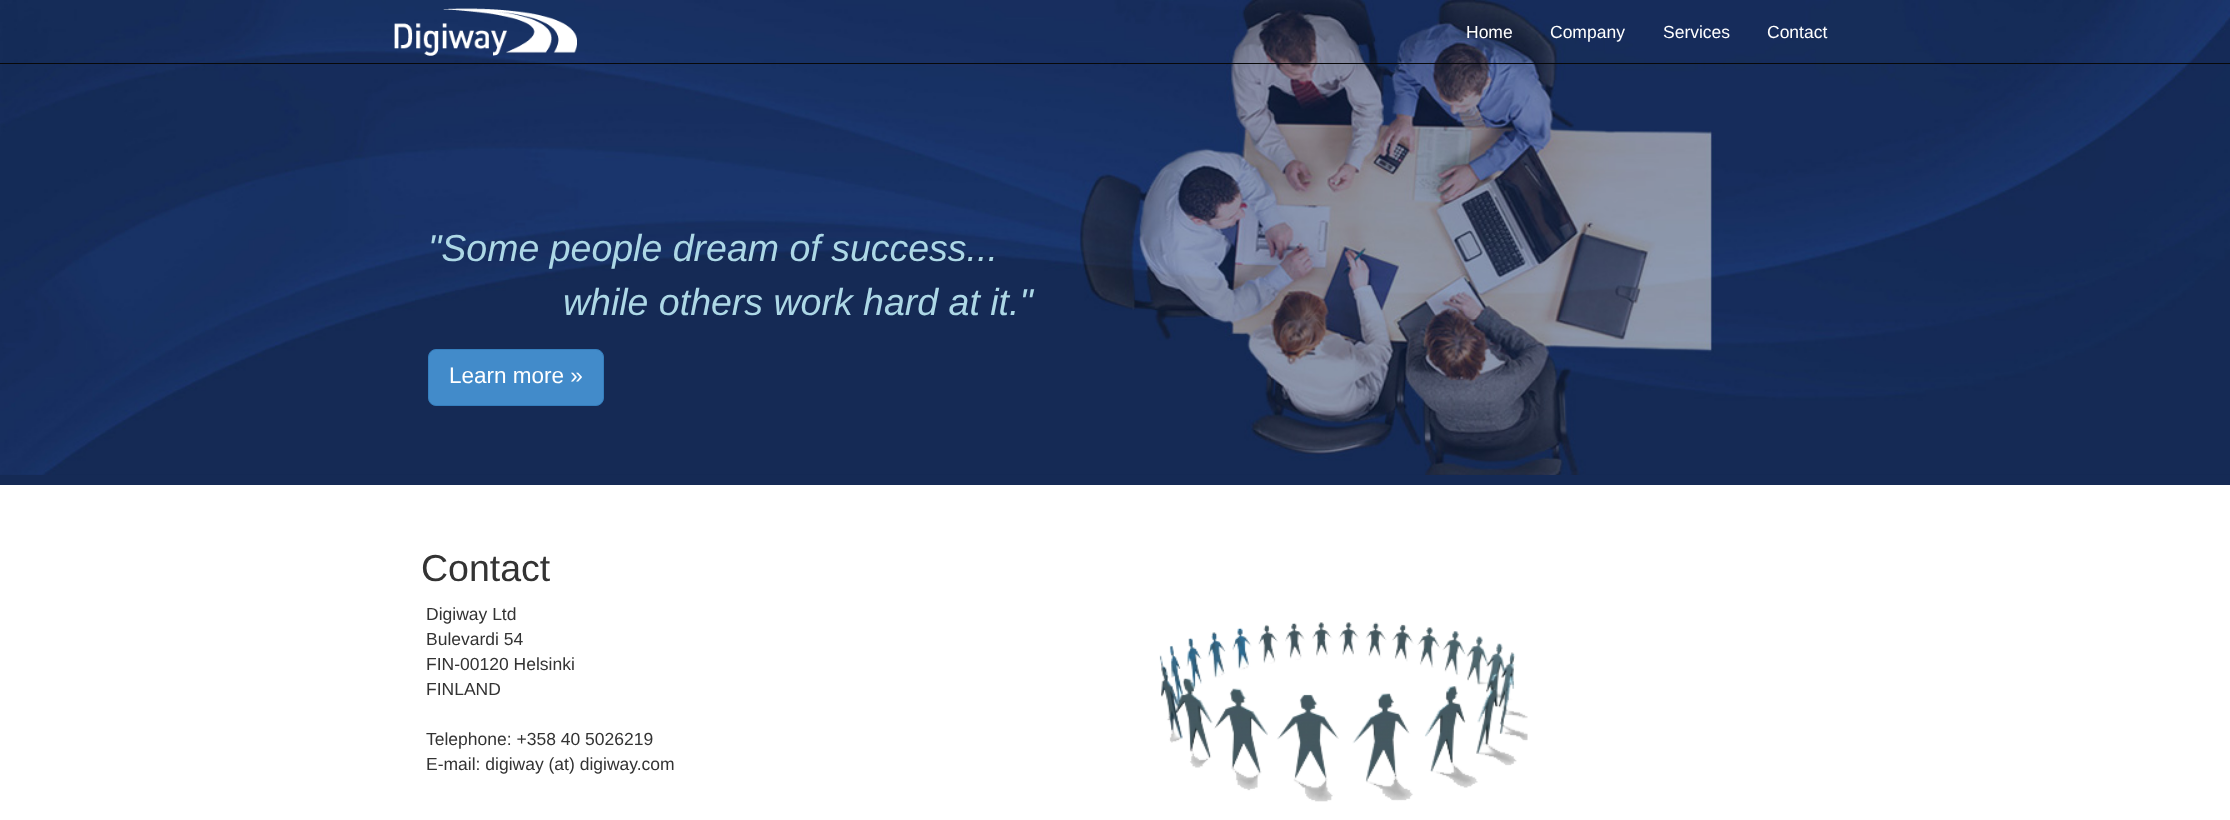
<svg xmlns="http://www.w3.org/2000/svg" width="2230" height="820" viewBox="0 0 2230 820">
  <rect width="100%" height="100%" fill="#fff"/>
  <path d="M0 474h2230v11H0z" fill="#152a55"/>
  <image x="0" y="0" width="2230" height="475" href="img/2.png"/>
  <path d="M0 63h2230v1H0z" fill="#080808"/>
  <image x="394" y="8" width="183" height="48" href="img/1.png"/>
  <rect x="428.5" y="349.5" width="175" height="56" rx="7.5" fill="#428bca" stroke="#357ebd"/>
  <image x="1159" y="622" width="369" height="180" href="img/3.png"/>
  <g font-family="Liberation Sans" font-size="17.5" fill="#fff">
    <text x="1466" y="38">Home</text>
    <text x="1550" y="38">Company</text>
    <text x="1663" y="38">Services</text>
    <text x="1767" y="38">Contact</text>
  </g>
  <g font-family="Liberation Sans" font-size="37.5" font-style="italic" fill="#add8e6">
    <text x="428" y="261">"Some people dream of success...</text>
    <text x="563" y="315">while others work hard at it."</text>
  </g>
  <text x="449" y="383" font-family="Liberation Sans" font-size="22.5" fill="#fff">Learn more »</text>
  <text x="421" y="581" font-family="Liberation Sans" font-size="37.5" fill="#333">Contact</text>
  <g font-family="Liberation Sans" font-size="17.5" fill="#333">
    <text x="426" y="620">Digiway Ltd</text>
    <text x="426" y="645">Bulevardi 54</text>
    <text x="426" y="670">FIN-00120 Helsinki</text>
    <text x="426" y="695">FINLAND</text>
    <text x="426" y="745">Telephone: +358 40 5026219</text>
    <text x="426" y="770">E-mail: digiway (at) digiway.com</text>
  </g>
</svg>
